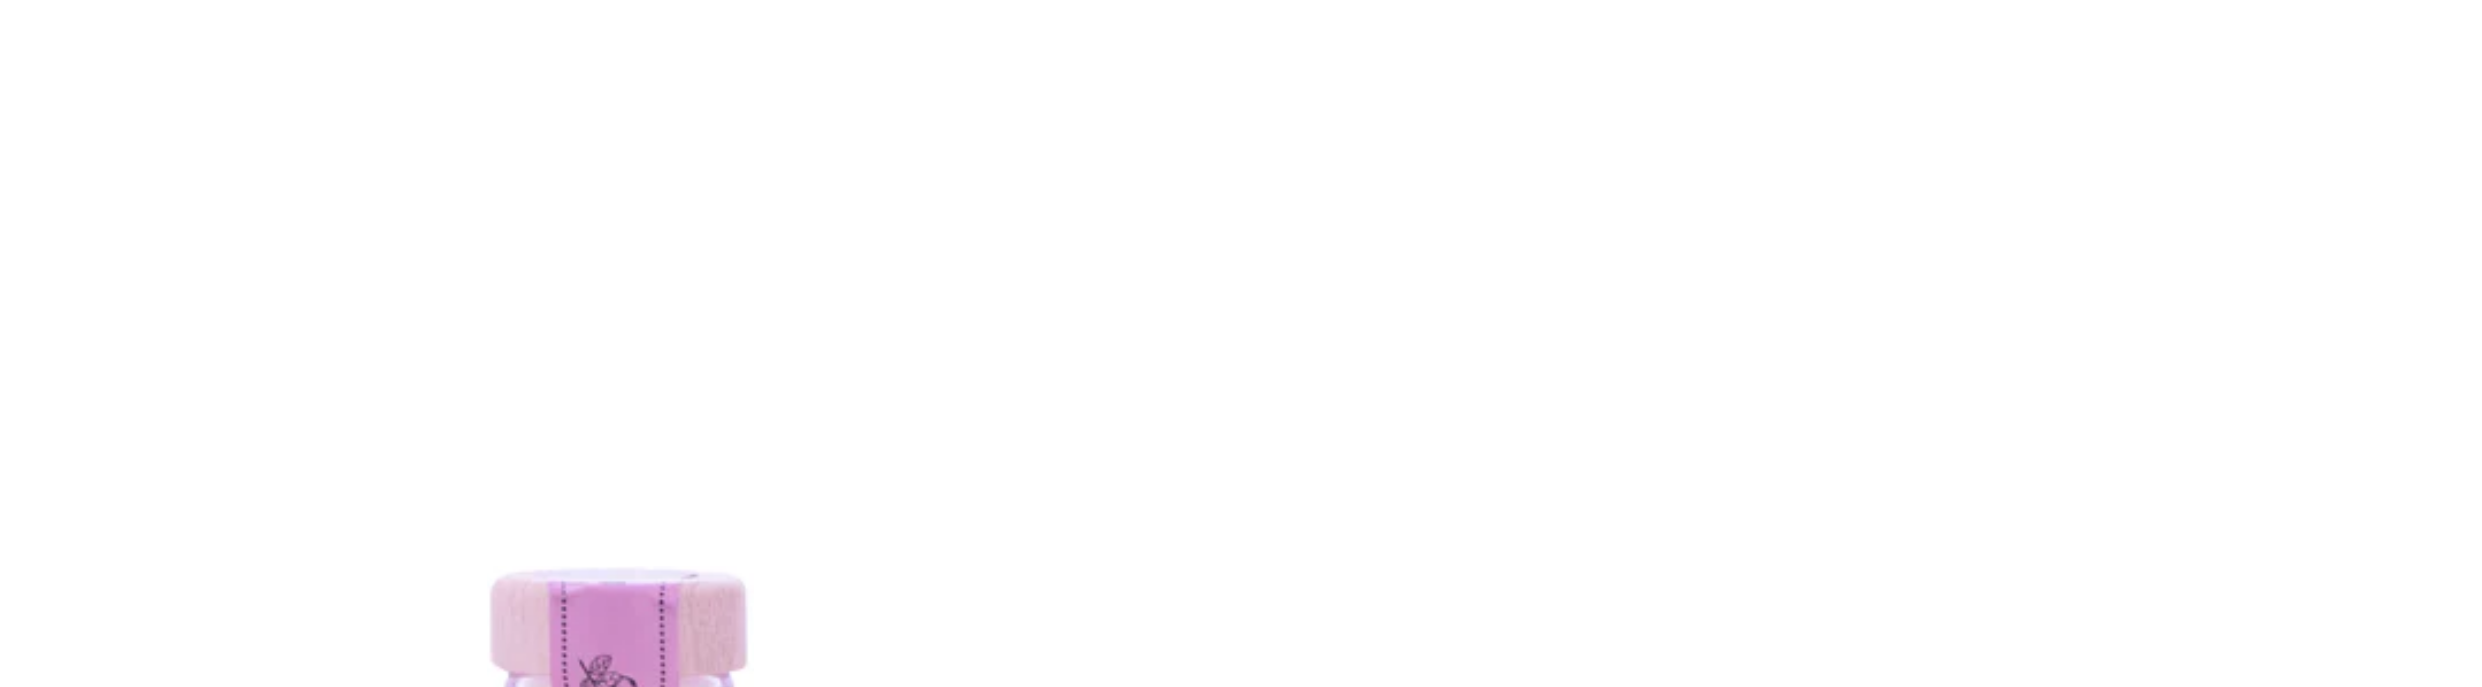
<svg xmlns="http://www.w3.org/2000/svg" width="2482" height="687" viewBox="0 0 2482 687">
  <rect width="100%" height="100%" fill="#fff"/>
  <image x="487" y="566" width="267" height="121" href="img/1.png"/>
</svg>
